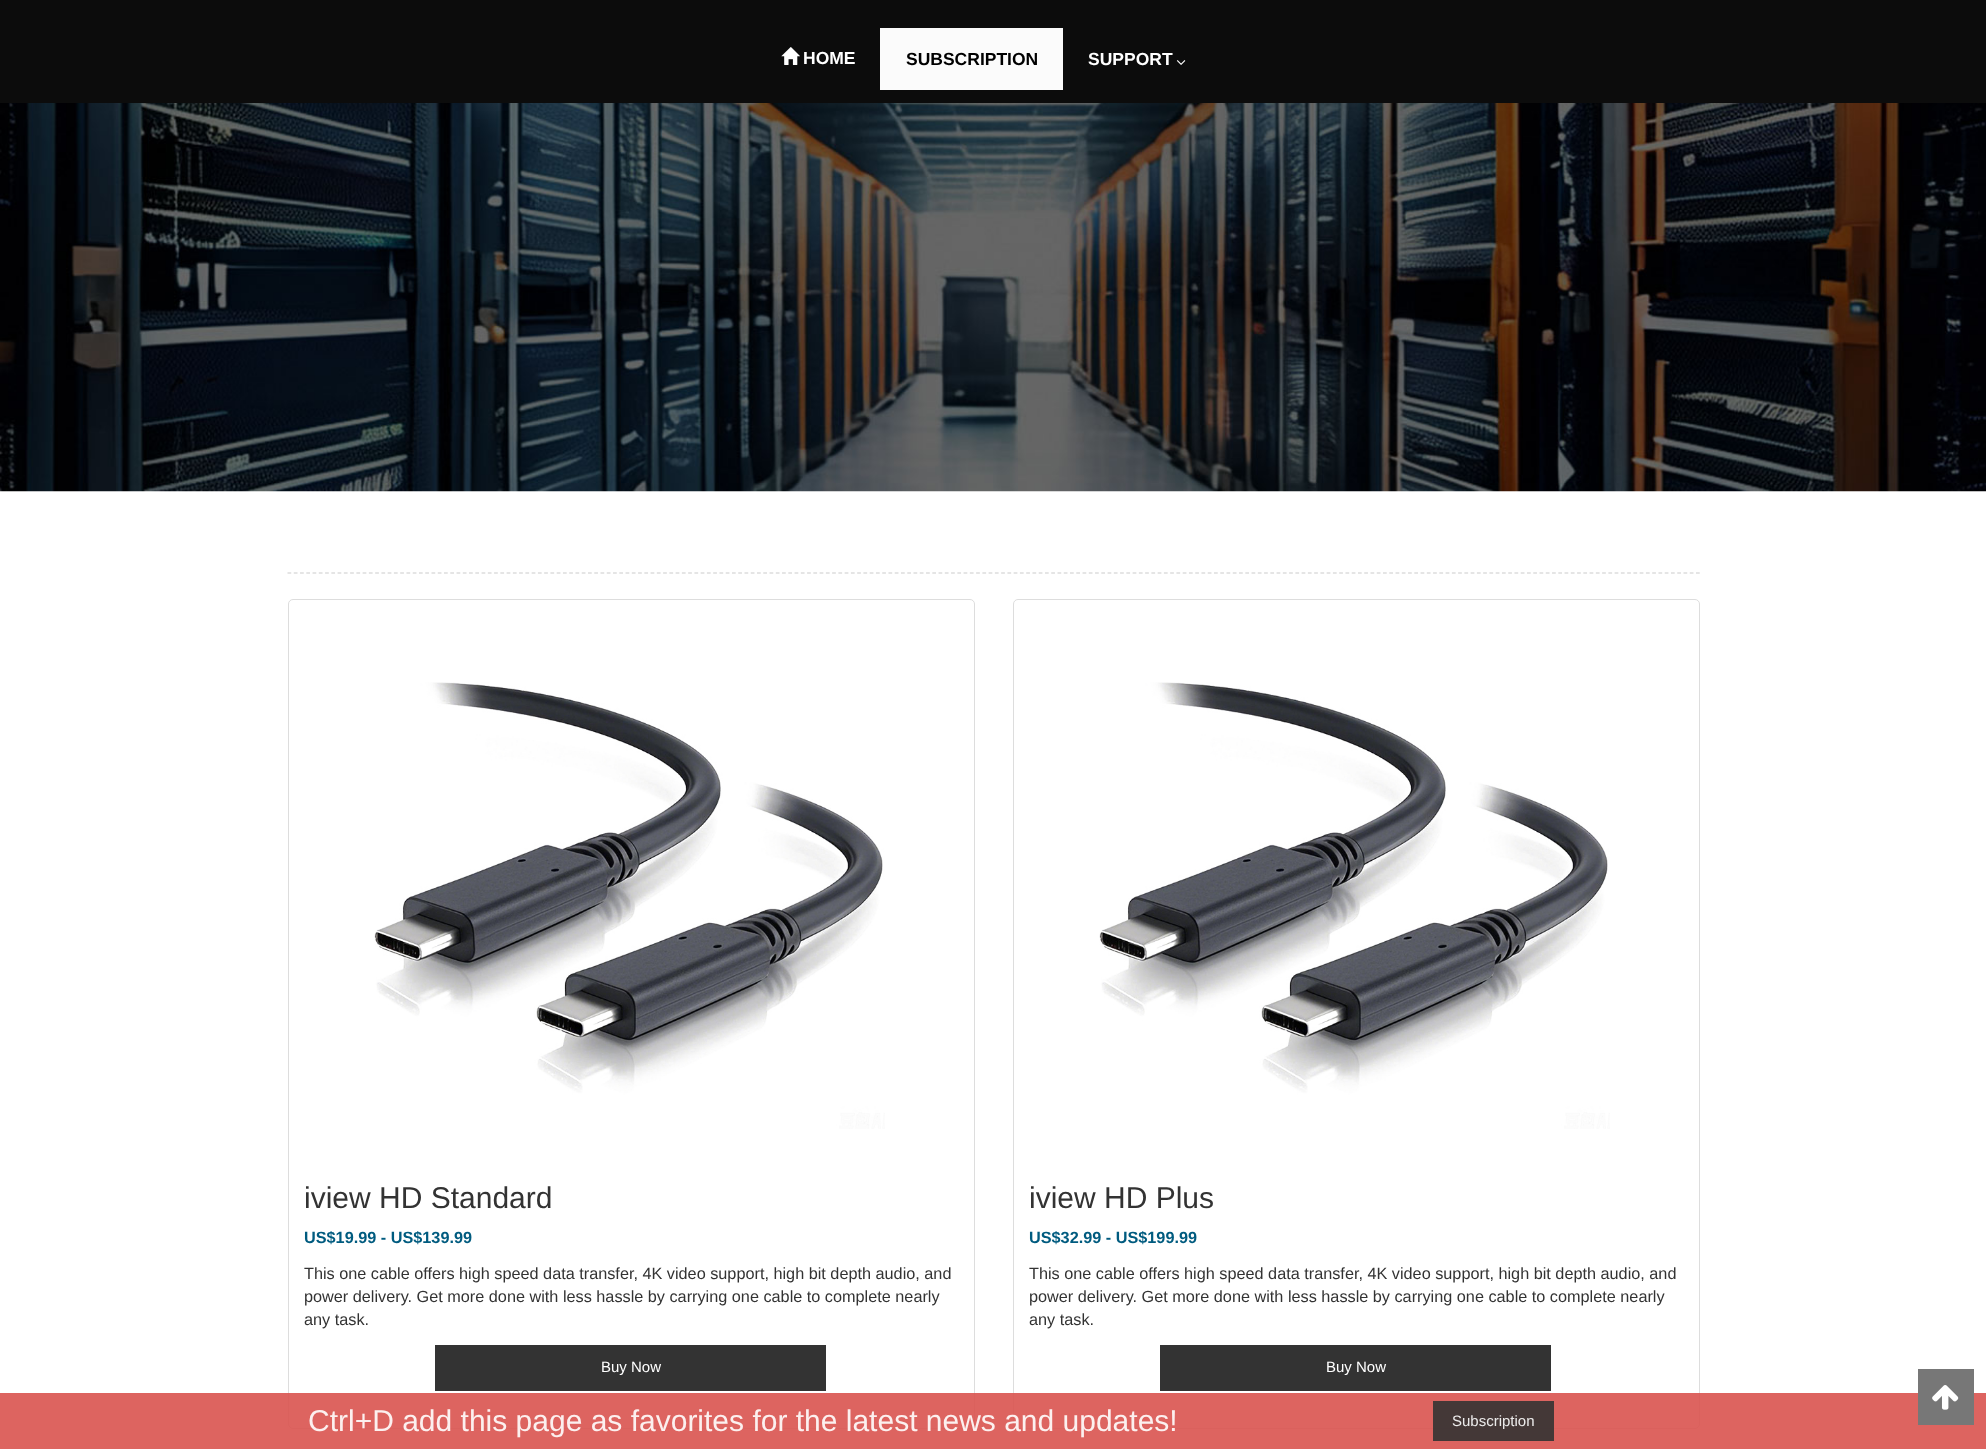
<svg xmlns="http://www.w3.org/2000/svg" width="1986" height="1449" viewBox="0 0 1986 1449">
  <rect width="100%" height="100%" fill="#fff"/>
  <path d="M0 0h1986v103H0z" fill="#0c0c0c"/>
  <image x="781" y="47" width="19" height="18" href="img/1.png"/>
  <path d="M880 28h183v62H880z" fill="#fbfbfb"/>
  <image x="1176" y="60" width="10" height="5" href="img/2.png"/>
  <image x="0" y="103" width="1986" height="389" href="img/3.png"/>
  <path d="M287.5 573H1700" fill="none" stroke="#ccc" stroke-width="1.2" stroke-dasharray="3.75 2.51"/>
  <rect x="288.5" y="599.5" width="686" height="829" rx="4.5" fill="none" stroke="#ddd"/>
  <image x="374" y="682" width="511" height="447" href="img/4.png"/>
  <path d="M435 1345h391v46H435z" fill="#333"/>
  <rect x="1013.5" y="599.5" width="686" height="829" rx="4.5" fill="none" stroke="#ddd"/>
  <image x="1099" y="682" width="511" height="447" href="img/4.png"/>
  <path d="M1160 1345h391v46H1160z" fill="#333"/>
  <path d="M0 1393h1986v56H0z" fill="#d9534fe6"/>
  <path d="M1433 1401h121v40H1433z" fill="#333333e6"/>
  <path d="M1918 1369h56v56H1918z" fill="#777"/>
  <image x="1932" y="1385" width="27" height="25" href="img/5.png"/>
  <text x="803" y="64" font-family="Liberation Sans" font-size="17.5" font-weight="bold" fill="#fff">HOME</text>
  <text x="906" y="65" font-family="Liberation Sans" font-size="17.5" font-weight="bold" fill="#000">SUBSCRIPTION</text>
  <text x="1088" y="65" font-family="Liberation Sans" font-size="17.5" font-weight="bold" fill="#fff">SUPPORT</text>
  <text x="304" y="1208" font-family="Liberation Sans" font-size="30" fill="#333">iview HD Standard</text>
  <text x="304" y="1243" font-family="Liberation Sans" font-size="16.25" font-weight="bold" fill="#005b7f">US$19.99 - US$139.99</text>
  <g font-family="Liberation Sans" font-size="16.25" fill="#333">
    <text x="304" y="1279">This one cable offers high speed data transfer, 4K video support, high bit depth audio, and</text>
    <text x="304" y="1302">power delivery. Get more done with less hassle by carrying one cable to complete nearly</text>
    <text x="304" y="1325">any task.</text>
  </g>
  <text x="601" y="1372" font-family="Liberation Sans" font-size="15" fill="#fff">Buy Now</text>
  <text x="1029" y="1208" font-family="Liberation Sans" font-size="30" fill="#333">iview HD Plus</text>
  <text x="1029" y="1243" font-family="Liberation Sans" font-size="16.25" font-weight="bold" fill="#005b7f">US$32.99 - US$199.99</text>
  <g font-family="Liberation Sans" font-size="16.25" fill="#333">
    <text x="1029" y="1279">This one cable offers high speed data transfer, 4K video support, high bit depth audio, and</text>
    <text x="1029" y="1302">power delivery. Get more done with less hassle by carrying one cable to complete nearly</text>
    <text x="1029" y="1325">any task.</text>
  </g>
  <text x="1326" y="1372" font-family="Liberation Sans" font-size="15" fill="#fff">Buy Now</text>
  <text x="308" y="1431" font-family="Liberation Sans" font-size="30" fill="#fcf0ef">Ctrl+D add this page as favorites for the latest news and updates!</text>
  <text x="1452" y="1426" font-family="Liberation Sans" font-size="15" fill="#ecebeb">Subscription</text>
</svg>
